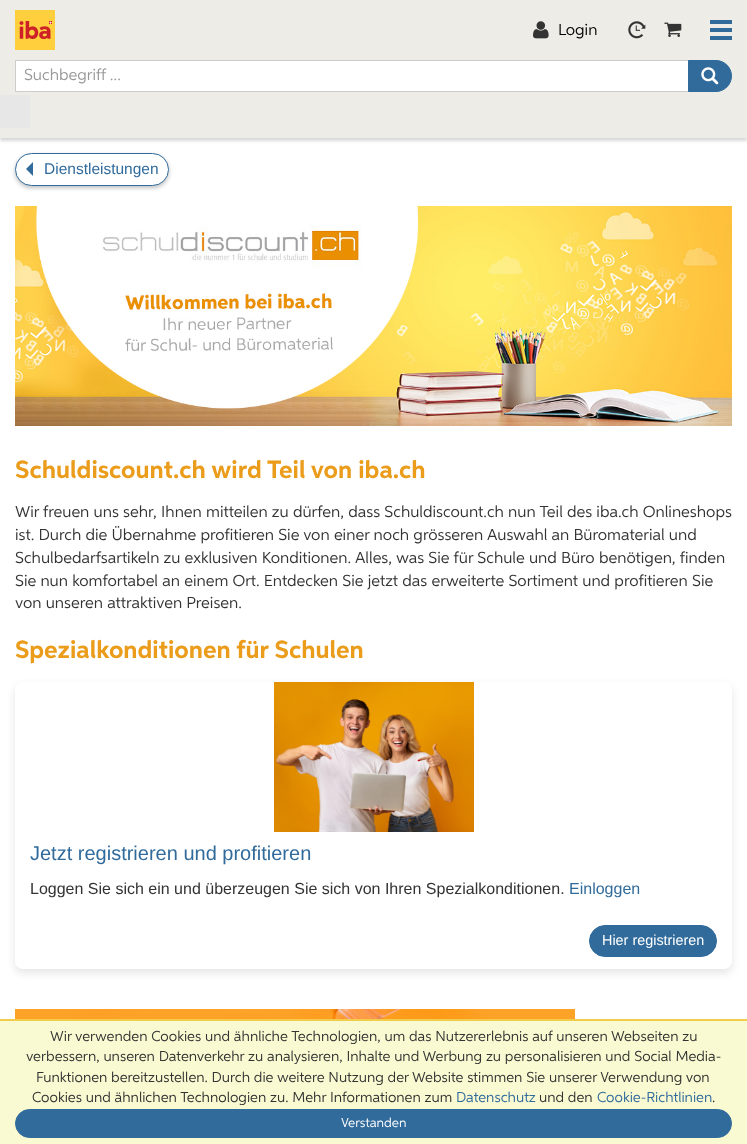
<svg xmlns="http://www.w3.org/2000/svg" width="747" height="1144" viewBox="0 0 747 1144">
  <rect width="100%" height="100%" fill="#fff"/>
  <path d="M0 3h747v138H0z" fill="#00000026" filter="blur(1.5px)"/>
  <path d="M0 0h747v138H0z" fill="#edece6"/>
  <image x="15" y="10" width="40" height="40" href="img/1.png"/>
  <image x="533" y="21" width="16" height="18" href="img/2.png"/>
  <image x="628" y="21" width="18" height="18" href="img/3.png"/>
  <image x="664" y="22" width="18" height="15" href="img/4.png"/>
  <path d="M710 20h22v4H710z" fill="#316b9c"/>
  <path d="M710 28h22v4H710z" fill="#316b9c"/>
  <path d="M710 36h22v4H710z" fill="#316b9c"/>
  <path d="M16 61h672v30H16z" fill="#fff"/>
  <path d="M15.5 60.5h674v31H15.5z" fill="none" stroke="#ccc"/>
  <path d="M688.5 60.5H716C724.5 60.5 731.5 67.5 731.5 76C731.5 84.5 724.5 91.5 716 91.5H688.5Z" fill="#316b9c" stroke="#316b9c"/>
  <image x="701" y="67" width="18" height="18" href="img/5.png"/>
  <path d="M0 95h30v33H0z" fill="#e7e7e7"/>
  <rect x="15" y="155" width="154" height="33" rx="16.5" fill="#00000040" filter="blur(2px)"/>
  <rect x="15.5" y="153.5" width="153" height="32" rx="16" fill="#fff" stroke="#316b9c"/>
  <path d="M33 162V176L26 169Z" fill="#316b9c"/>
  <image x="15" y="206" width="717" height="220" href="img/6.png"/>
  <rect x="15" y="686" width="717" height="287" rx="8" fill="#0000001a" filter="blur(4px)"/>
  <rect x="15" y="682" width="717" height="287" rx="8" fill="#fff"/>
  <image x="274" y="682" width="200" height="150" href="img/7.png"/>
  <rect x="589.5" y="925.5" width="127" height="31" rx="15.5" fill="#316b9c" stroke="#316b9c"/>
  <image x="15" y="1009" width="560" height="10" href="img/8.png"/>
  <path d="M0 1021h747v123H0z" fill="#fafad2"/>
  <path d="M0 1019h747v2H0z" fill="#f2cd4c"/>
  <rect x="15.5" y="1109.5" width="716" height="28" rx="14" fill="#316b9c" stroke="#316b9c"/>
  <text x="558" y="35" font-family="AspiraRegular" font-size="16" fill="#000">Login</text>
  <text x="24" y="80" font-family="AspiraRegular" font-size="16" fill="#999">Suchbegriff ...</text>
  <text x="44" y="174" font-family="Liberation Sans" font-size="15.5" fill="#316b9c">Dienstleistungen</text>
  <text x="15" y="478" font-family="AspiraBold" font-size="25" fill="#ea9c1a">Schuldiscount.ch wird Teil von iba.ch</text>
  <g font-family="AspiraRegular" font-size="16" fill="#333">
    <text x="15" y="517">Wir freuen uns sehr, Ihnen mitteilen zu dürfen, dass Schuldiscount.ch nun Teil des iba.ch Onlineshops</text>
    <text x="15" y="540">ist. Durch die Übernahme profitieren Sie von einer noch grösseren Auswahl an Büromaterial und</text>
    <text x="15" y="563">Schulbedarfsartikeln zu exklusiven Konditionen. Alles, was Sie für Schule und Büro benötigen, finden</text>
    <text x="15" y="586">Sie nun komfortabel an einem Ort. Entdecken Sie jetzt das erweiterte Sortiment und profitieren Sie</text>
    <text x="15" y="608">von unseren attraktiven Preisen.</text>
  </g>
  <text x="15" y="658" font-family="AspiraBold" font-size="25" fill="#ea9c1a">Spezialkonditionen für Schulen</text>
  <text x="30" y="860" font-family="Liberation Sans" font-size="20" fill="#316b9c">Jetzt registrieren und profitieren</text>
  <text x="30" y="894" font-family="Liberation Sans" font-size="16" fill="#333">Loggen Sie sich ein und überzeugen Sie sich von Ihren Spezialkonditionen.</text>
  <text x="569" y="894" font-family="Liberation Sans" font-size="16" fill="#316b9c">Einloggen</text>
  <text x="602" y="945" font-family="Liberation Sans" font-size="14.4" fill="#fff">Hier registrieren</text>
  <g font-family="AspiraRegular" font-size="14.4" fill="#333">
    <text x="50" y="1041">Wir verwenden Cookies und ähnliche Technologien, um das Nutzererlebnis auf unseren Webseiten zu</text>
    <text x="26" y="1061">verbessern, unseren Datenverkehr zu analysieren, Inhalte und Werbung zu personalisieren und Social Media-</text>
    <text x="36" y="1082">Funktionen bereitzustellen. Durch die weitere Nutzung der Website stimmen Sie unserer Verwendung von</text>
    <text x="32" y="1102">Cookies und ähnlichen Technologien zu. Mehr Informationen zum</text>
  </g>
  <text x="456" y="1102" font-family="AspiraRegular" font-size="14.4" fill="#316b9c">Datenschutz</text>
  <text x="539" y="1102" font-family="AspiraRegular" font-size="14.4" fill="#333">und den</text>
  <text x="597" y="1102" font-family="AspiraRegular" font-size="14.4" fill="#316b9c">Cookie-Richtlinien</text>
  <text x="712" y="1102" font-family="AspiraRegular" font-size="14.4" fill="#333">.</text>
  <text x="341" y="1127" font-family="AspiraRegular" font-size="13" fill="#fff">Verstanden</text>
</svg>
